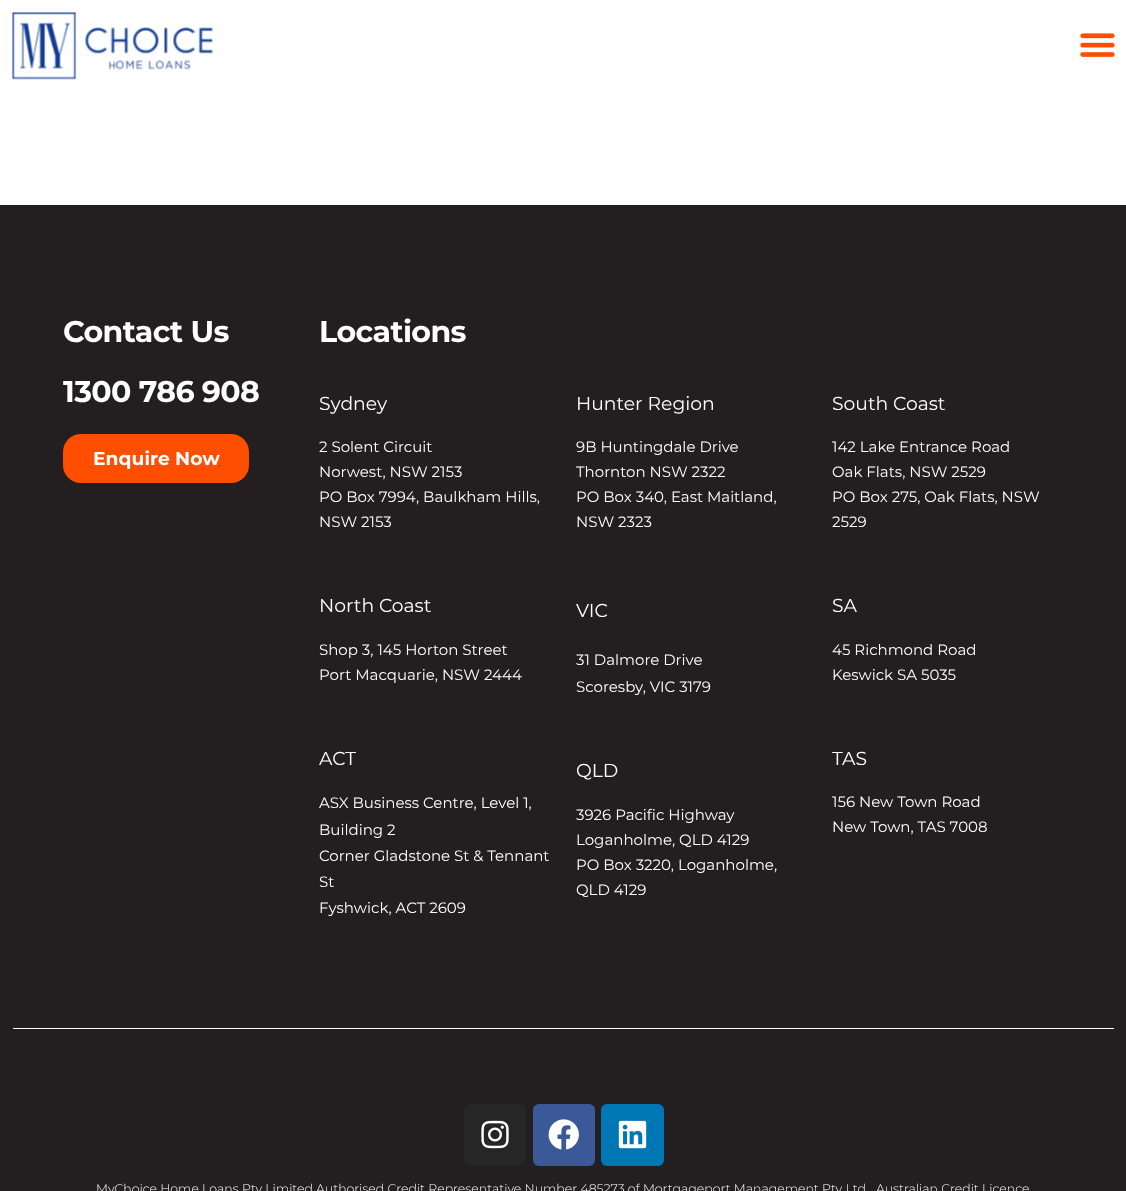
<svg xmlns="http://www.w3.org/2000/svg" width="1126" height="1191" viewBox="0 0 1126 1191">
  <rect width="100%" height="100%" fill="#fff"/>
  <image x="12" y="12" width="201" height="68" href="img/1.png"/>
  <image x="1080" y="33" width="35" height="24" href="img/2.png"/>
  <path d="M0 205h1126v986H0z" fill="#231f20"/>
  <rect x="63" y="434" width="186" height="49" rx="18" fill="#ff4e00"/>
  <path d="M13 1028h1101v1H13z" fill="#fff"/>
  <rect x="464" y="1104" width="62" height="62" rx="6" fill="#262626"/>
  <image x="481" y="1120" width="28" height="29" href="img/3.png"/>
  <rect x="533" y="1104" width="62" height="62" rx="6" fill="#3b5998"/>
  <image x="548" y="1119" width="31" height="31" href="img/4.png"/>
  <rect x="601" y="1104" width="63" height="62" rx="6" fill="#0077b5"/>
  <image x="618" y="1120" width="29" height="29" href="img/5.png"/>
  <g font-family="Montserrat" font-size="30" font-weight="bold" letter-spacing="-0.6" fill="#fff">
    <text x="63" y="342">Contact Us</text>
    <text x="63" y="402">1300 786 908</text>
  </g>
  <text x="93" y="465" font-family="Montserrat" font-size="18.75" font-weight="bold" fill="#fff">Enquire Now</text>
  <text x="319" y="342" font-family="Montserrat" font-size="30" font-weight="bold" letter-spacing="-0.6" fill="#fff">Locations</text>
  <text x="319" y="410" font-family="Montserrat" font-size="18.75" fill="#fff">Sydney</text>
  <g font-family="Montserrat" font-size="15" fill="#fff">
    <text x="319" y="452">2 Solent Circuit</text>
    <text x="319" y="477">Norwest, NSW 2153</text>
    <text x="319" y="502">PO Box 7994, Baulkham Hills,</text>
    <text x="319" y="527">NSW 2153</text>
  </g>
  <text x="319" y="612" font-family="Montserrat" font-size="18.75" fill="#fff">North Coast</text>
  <g font-family="Montserrat" font-size="15" fill="#fff">
    <text x="319" y="655">Shop 3, 145 Horton Street</text>
    <text x="319" y="680">Port Macquarie, NSW 2444</text>
  </g>
  <text x="319" y="765" font-family="Montserrat" font-size="18.75" fill="#fff">ACT</text>
  <g font-family="Montserrat" font-size="15" fill="#fff">
    <text x="319" y="808">ASX Business Centre, Level 1,</text>
    <text x="319" y="835">Building 2</text>
    <text x="319" y="861">Corner Gladstone St &amp; Tennant</text>
    <text x="319" y="887">St</text>
    <text x="319" y="913">Fyshwick, ACT 2609</text>
  </g>
  <text x="576" y="410" font-family="Montserrat" font-size="18.75" fill="#fff">Hunter Region</text>
  <g font-family="Montserrat" font-size="15" fill="#fff">
    <text x="576" y="452">9B Huntingdale Drive</text>
    <text x="576" y="477">Thornton NSW 2322</text>
    <text x="576" y="502">PO Box 340, East Maitland,</text>
    <text x="576" y="527">NSW 2323</text>
  </g>
  <text x="576" y="617" font-family="Montserrat" font-size="18.75" fill="#fff">VIC</text>
  <g font-family="Montserrat" font-size="15" fill="#fff">
    <text x="576" y="665">31 Dalmore Drive</text>
    <text x="576" y="692">Scoresby, VIC 3179</text>
  </g>
  <text x="576" y="777" font-family="Montserrat" font-size="18.75" fill="#fff">QLD</text>
  <g font-family="Montserrat" font-size="15" fill="#fff">
    <text x="576" y="820">3926 Pacific Highway</text>
    <text x="576" y="845">Loganholme, QLD 4129</text>
    <text x="576" y="870">PO Box 3220, Loganholme,</text>
    <text x="576" y="895">QLD 4129</text>
  </g>
  <text x="832" y="410" font-family="Montserrat" font-size="18.75" fill="#fff">South Coast</text>
  <g font-family="Montserrat" font-size="15" fill="#fff">
    <text x="832" y="452">142 Lake Entrance Road</text>
    <text x="832" y="477">Oak Flats, NSW 2529</text>
    <text x="832" y="502">PO Box 275, Oak Flats, NSW</text>
    <text x="832" y="527">2529</text>
  </g>
  <text x="832" y="612" font-family="Montserrat" font-size="18.75" fill="#fff">SA</text>
  <g font-family="Montserrat" font-size="15" fill="#fff">
    <text x="832" y="655">45 Richmond Road</text>
    <text x="832" y="680">Keswick SA 5035</text>
  </g>
  <text x="832" y="765" font-family="Montserrat" font-size="18.75" fill="#fff">TAS</text>
  <g font-family="Montserrat" font-size="15" fill="#fff">
    <text x="832" y="807">156 New Town Road</text>
    <text x="832" y="832">New Town, TAS 7008</text>
  </g>
  <g font-family="Montserrat" font-size="12.5" font-weight="300" fill="#fff">
    <text x="96" y="1193">MyChoice Home Loans Pty Limited Authorised Credit Representative Number 485273 of Mortgageport Management Pty Ltd</text>
    <text x="876" y="1193">Australian Credit Licence</text>
  </g>
</svg>
